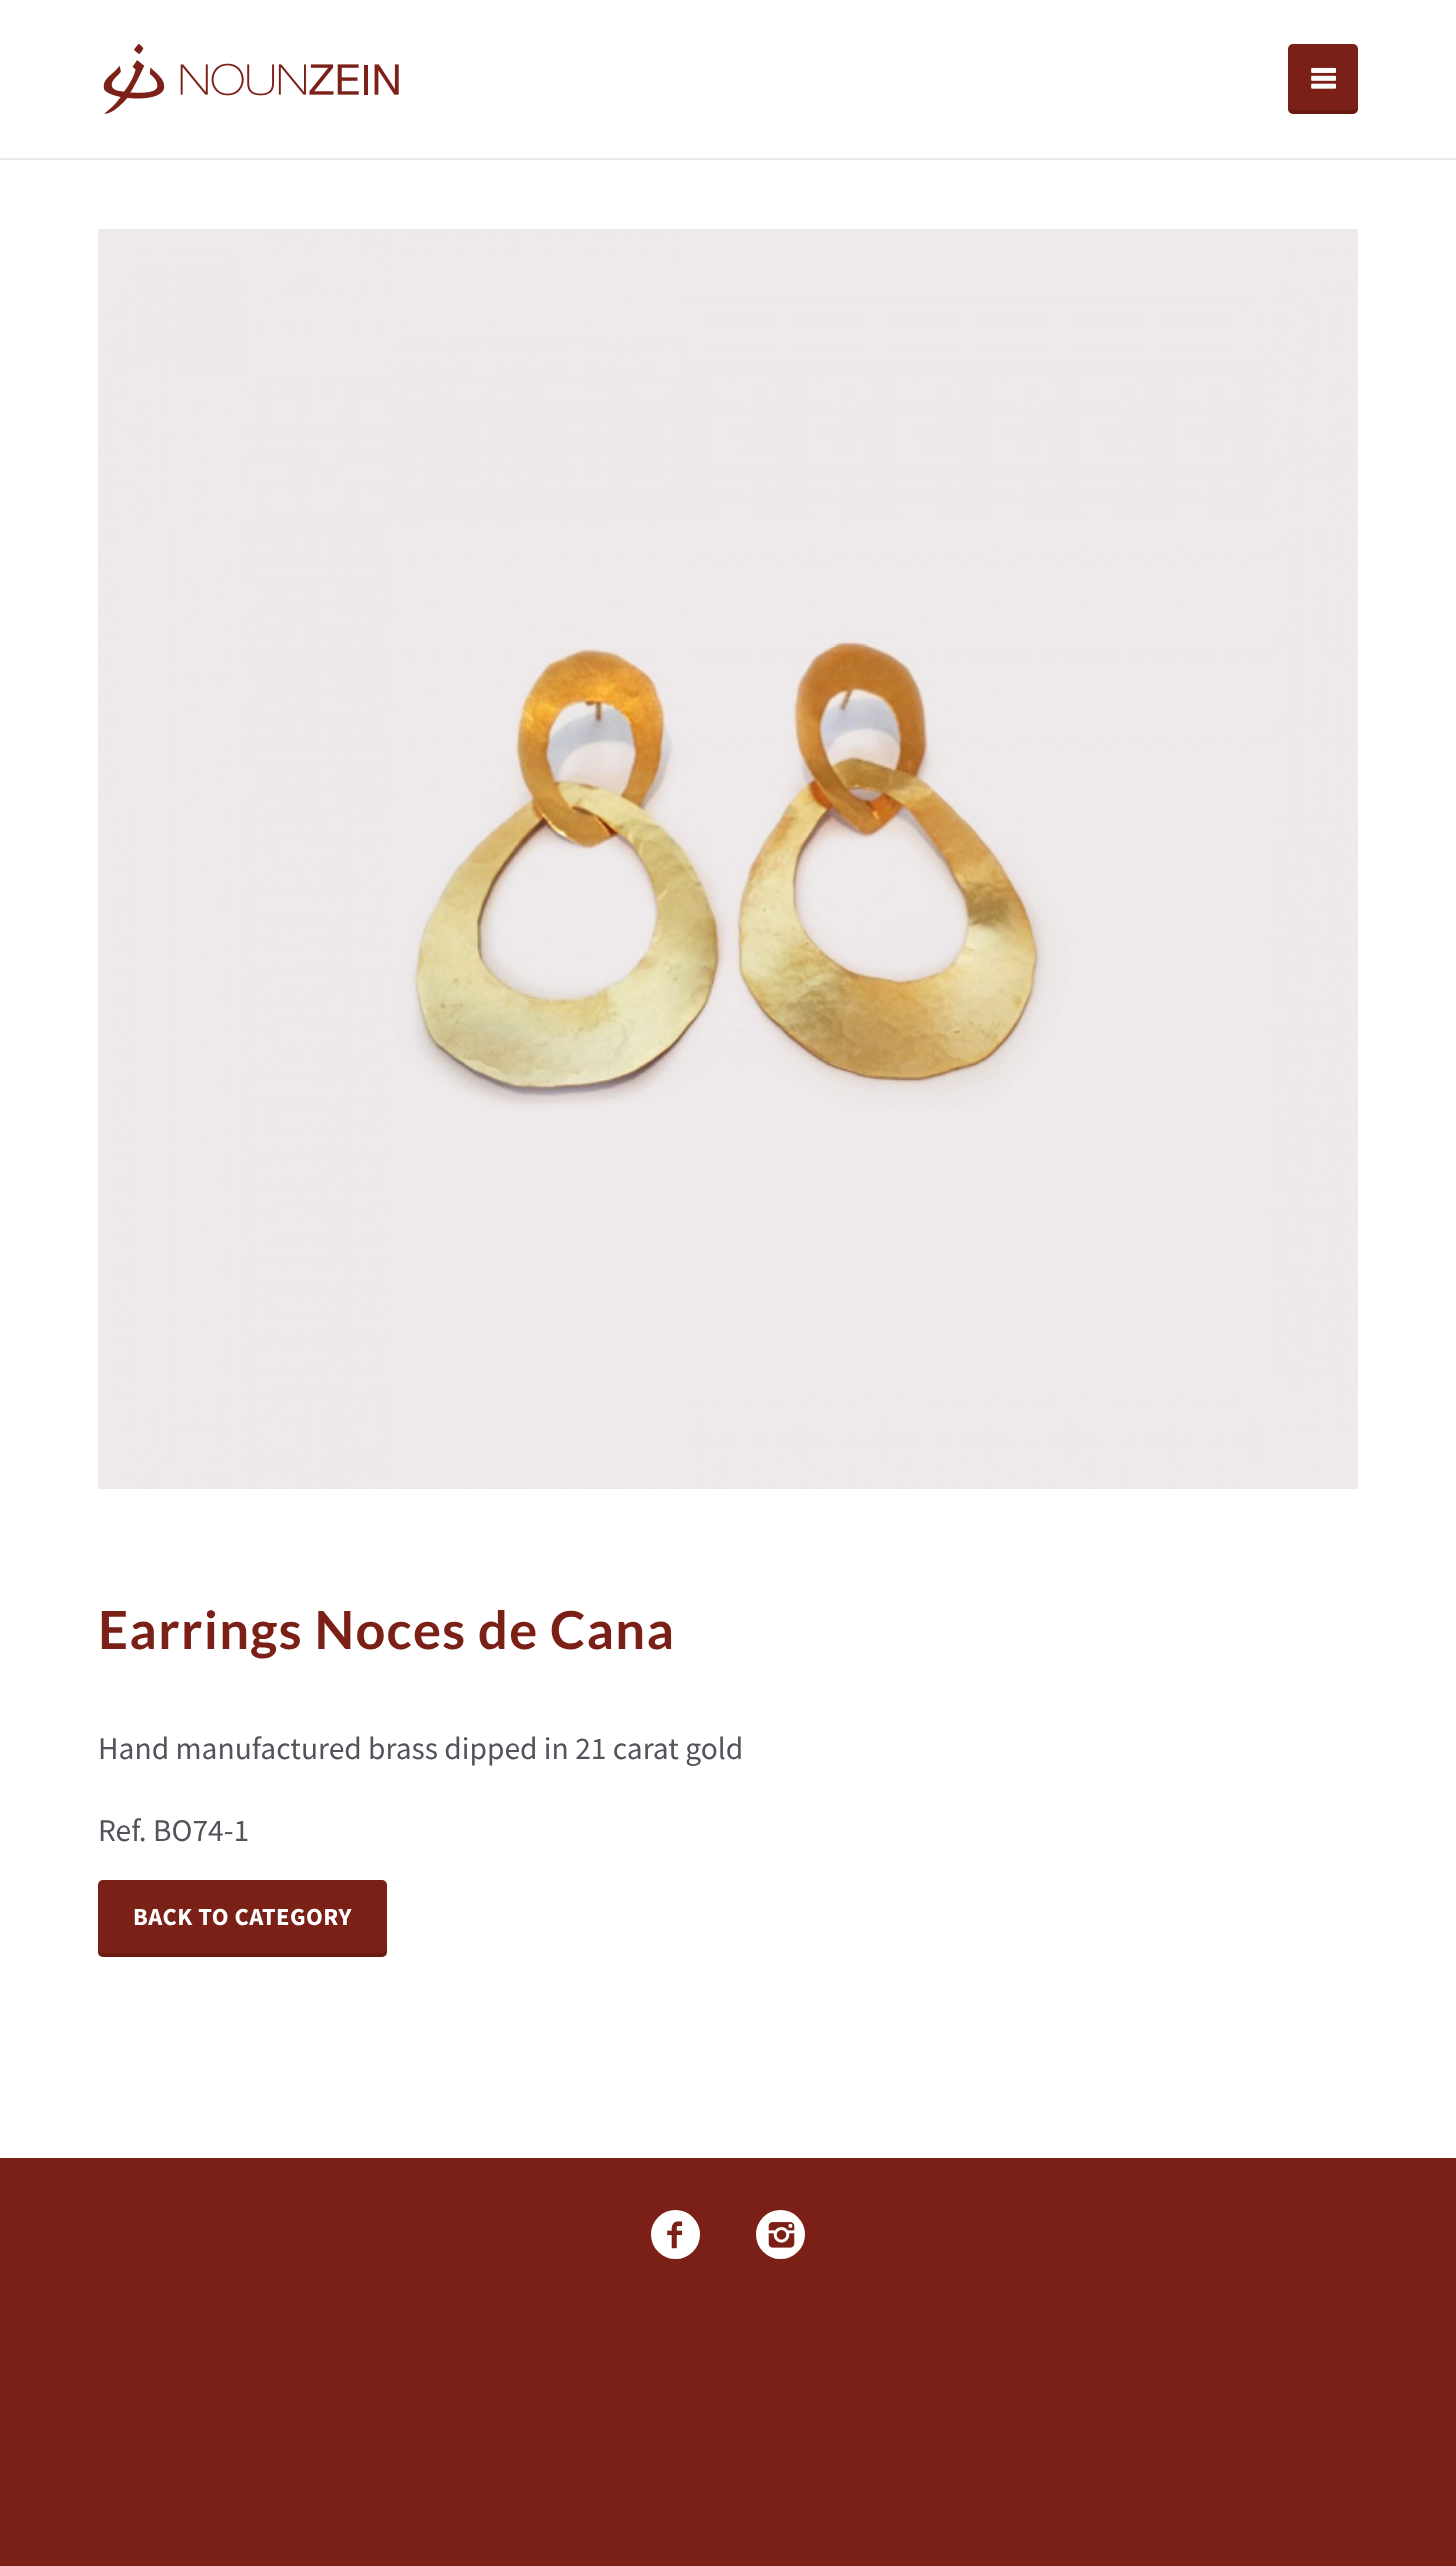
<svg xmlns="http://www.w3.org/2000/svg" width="1456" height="2566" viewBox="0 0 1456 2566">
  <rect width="100%" height="100%" fill="#7a2017"/>
  <path d="M0 0h1456v158H0z" fill="#fff"/>
  <path d="M0 158h1456v2H0z" fill="#e6e9ed"/>
  <image x="103" y="44" width="296" height="70" href="img/1.png"/>
  <rect x="1288" y="44" width="70" height="70" rx="5" fill="#7a2017"/>
  <path d="M1288 105C1288 116 1292 114 1303 114H1343C1354 114 1358 116 1358 105C1358 108 1356 110 1353 110H1293C1290 110 1288 108 1288 105Z" fill="#00000026"/>
  <image x="1311" y="67" width="26" height="22" href="img/2.png"/>
  <path d="M0 160h1456v1998H0z" fill="#fff"/>
  <image x="98" y="229" width="1260" height="1260" href="img/3.png"/>
  <rect x="98" y="1880" width="289" height="77" rx="5" fill="#7a2017"/>
  <path d="M98 1948V1952C98 1955 100 1957 103 1957H382C385 1957 387 1955 387 1952V1948C387 1951 384 1953 382 1953H103C100 1953 98 1951 98 1948Z" fill="#00000026"/>
  <circle cx="675.5" cy="2234.5" r="24.5" fill="#fff"/>
  <image x="667" y="2221" width="16" height="28" href="img/4.png"/>
  <circle cx="780.5" cy="2234.5" r="24.5" fill="#fff"/>
  <image x="768" y="2222" width="27" height="26" href="img/5.png"/>
  <text x="98" y="1649" font-family="Lato" font-size="52.5" font-weight="bold" letter-spacing="1.3" fill="#7a2017">Earrings Noces de Cana</text>
  <g font-family="Source Sans Pro" font-size="31.5" fill="#51545b">
    <text x="98" y="1759">Hand manufactured brass dipped in 21 carat gold</text>
    <text x="98" y="1841">Ref. BO74-1</text>
  </g>
  <text x="133" y="1925" font-family="Source Sans Pro" font-size="24.5" font-weight="bold" letter-spacing="0.5" fill="#fff">BACK TO CATEGORY</text>
</svg>
